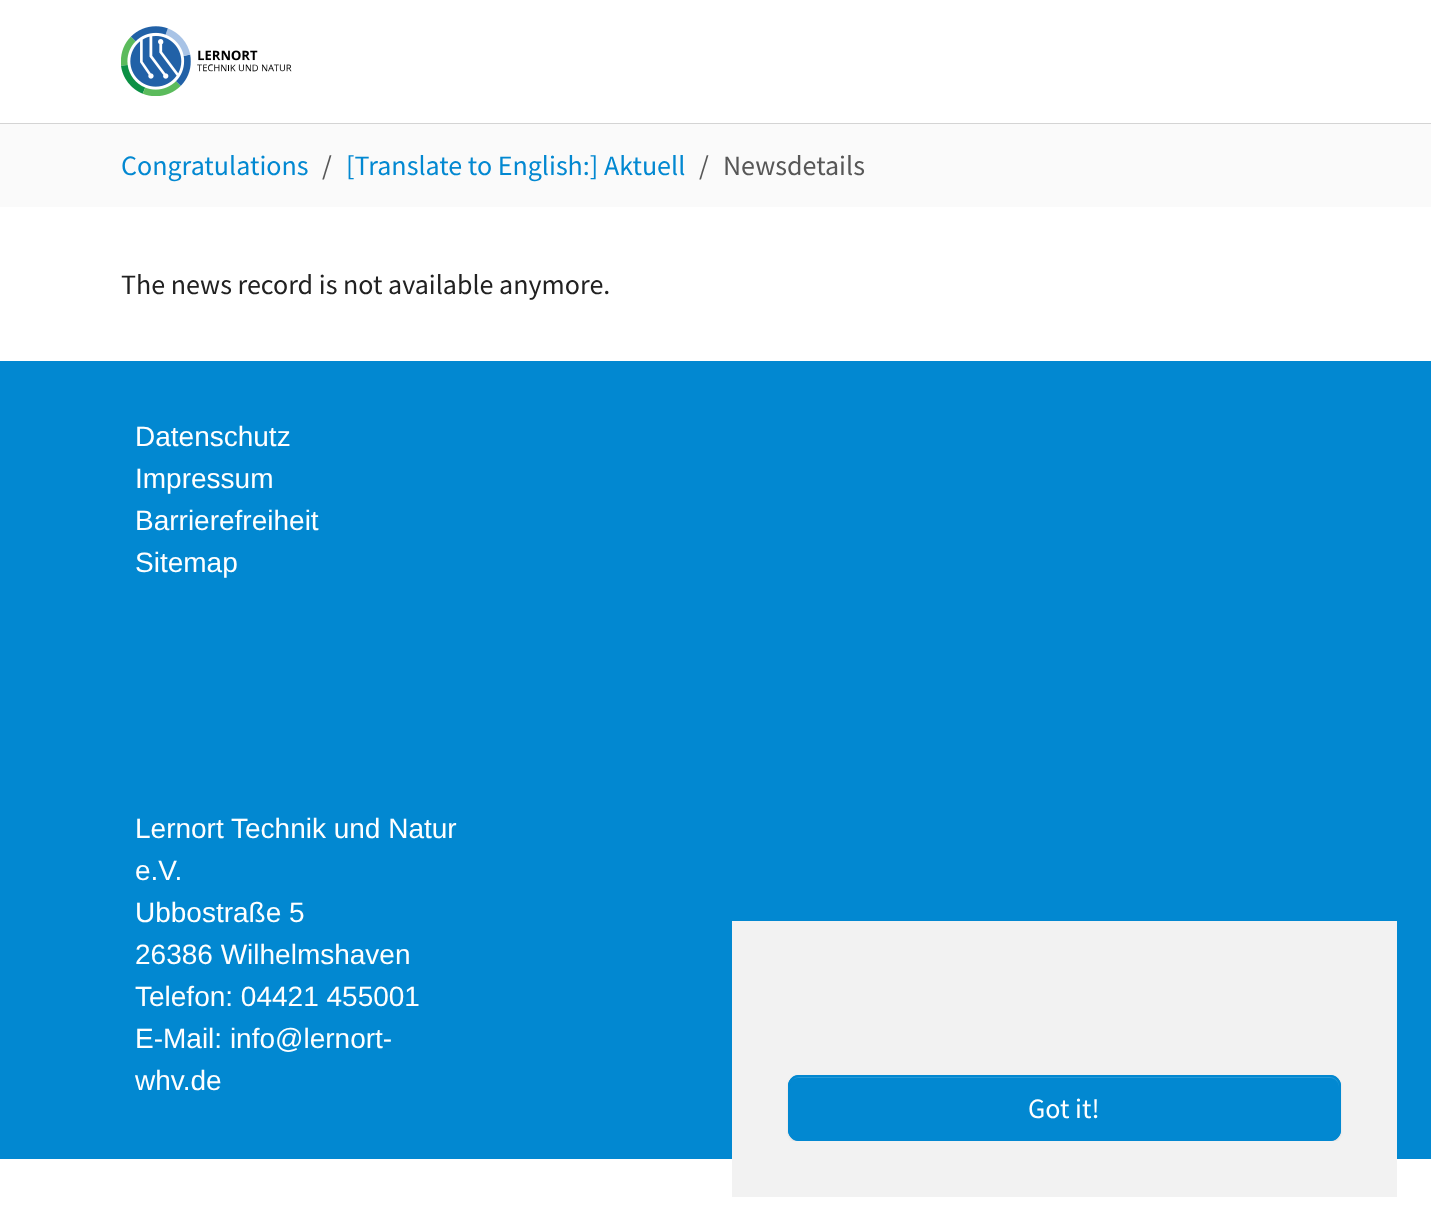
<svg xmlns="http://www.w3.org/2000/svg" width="1431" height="1232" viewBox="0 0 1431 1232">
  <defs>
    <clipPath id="clip1"><path d="M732 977h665v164H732z"/></clipPath>
  </defs>
  <rect width="100%" height="100%" fill="#fff"/>
  <path d="M0 123h1431v84H0z" fill="#fafafa"/>
  <path d="M0 122V124H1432V2V122Z" fill="#00000026"/>
  <path d="M0 122h1431v1H0z" fill="#fff"/>
  <image x="121" y="26" width="171" height="70" href="img/1.png"/>
  <path d="M0 361h1431v798H0z" fill="#0288d1"/>
  <path d="M732 921h665v276H732z" fill="#f2f2f2"/>
  <g clip-path="url(#clip1)">
    <rect x="788" y="1076" width="553" height="67" rx="11" fill="#00000012" filter="blur(1px)"/>
  </g>
  <rect x="788" y="1075" width="553" height="66" rx="11" fill="#0288d1"/>
  <path d="M798 1078H1330C1335 1078 1339 1082 1339 1087V1085C1339 1080 1335 1076 1330 1076H798C793 1076 789 1080 789 1085V1087C789 1082 793 1078 798 1078Z" fill="#289ad8"/>
  <rect x="789" y="1076" width="551" height="64" rx="10" fill="none" stroke="#0288d1" stroke-width="2"/>
  <text x="121" y="175" font-family="Source Sans Pro" font-size="28" fill="#0288d1">Congratulations</text>
  <text x="322" y="175" font-family="Source Sans Pro" font-size="28" fill="#575757">/</text>
  <text x="346" y="175" font-family="Source Sans Pro" font-size="28" fill="#0288d1">[Translate to English:] Aktuell</text>
  <g font-family="Source Sans Pro" font-size="28" fill="#575757">
    <text x="699" y="175">/</text>
    <text x="723" y="175">Newsdetails</text>
  </g>
  <text x="121" y="294" font-family="Source Sans Pro" font-size="28" fill="#212121">The news record is not available anymore.</text>
  <g font-family="Liberation Sans" font-size="28" fill="#fff">
    <text x="135" y="446">Datenschutz</text>
    <text x="135" y="488">Impressum</text>
    <text x="135" y="530">Barrierefreiheit</text>
    <text x="135" y="572">Sitemap</text>
    <text x="135" y="838">Lernort Technik und Natur</text>
    <text x="135" y="880">e.V.</text>
    <text x="135" y="922">Ubbostraße 5</text>
    <text x="135" y="964">26386 Wilhelmshaven</text>
    <text x="135" y="1006">Telefon: 04421 455001</text>
    <text x="135" y="1048">E-Mail: info@lernort-</text>
    <text x="135" y="1090">whv.de</text>
  </g>
  <text x="1028" y="1118" font-family="Source Sans Pro" font-size="28" fill="#fff">Got it!</text>
</svg>
